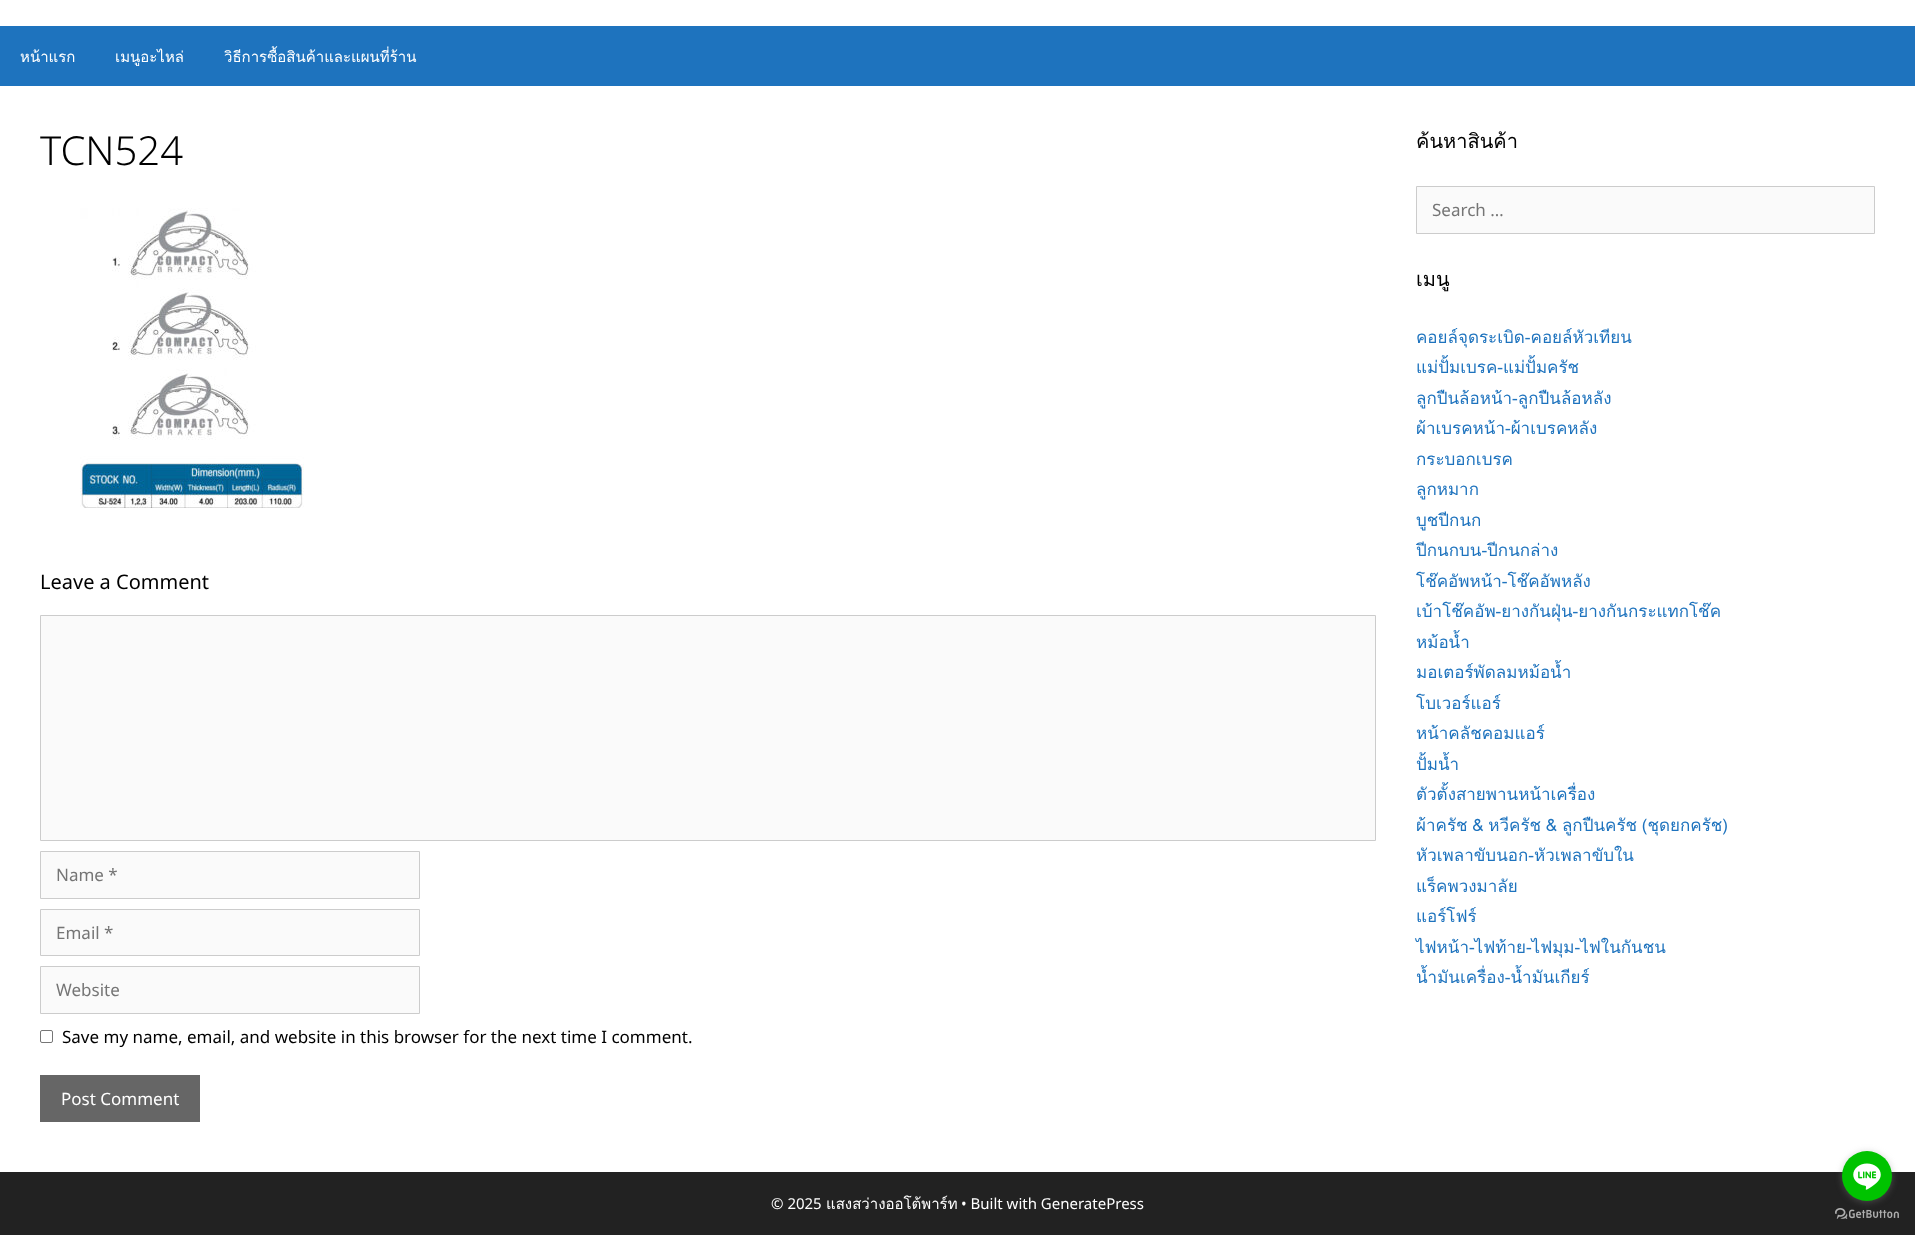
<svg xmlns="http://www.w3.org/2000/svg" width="1915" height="1235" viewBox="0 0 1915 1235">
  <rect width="100%" height="100%" fill="#1e73be"/>
  <path d="M0 0h1915v26H0z" fill="#fff"/>
  <path d="M0 86h1915v1086H0z" fill="#fff"/>
  <image x="80" y="208" width="224" height="300" href="img/1.png"/>
  <path d="M40.5 615.5h1335v225H40.5z" fill="#fafafa" stroke="#ccc"/>
  <path d="M40.5 851.5h379v47H40.5z" fill="#fafafa" stroke="#ccc"/>
  <path d="M40.5 909.5h379v46H40.5z" fill="#fafafa" stroke="#ccc"/>
  <path d="M40.5 966.5h379v47H40.5z" fill="#fafafa" stroke="#ccc"/>
  <rect x="40.5" y="1030.5" width="12" height="12" rx="1.5" fill="none" stroke="#767676"/>
  <path d="M40 1075h160v47H40z" fill="#666"/>
  <path d="M1416.5 186.5h458v47H1416.5z" fill="#fafafa" stroke="#ccc"/>
  <path d="M0 1172h1915v63H0z" fill="#222"/>
  <image x="1835" y="1208" width="64" height="11" href="img/3.png"/>
  <rect x="1842" y="1152" width="50" height="50" rx="25" fill="#88888866" filter="blur(3.5px)"/>
  <circle cx="1867" cy="1176" r="25" fill="#00c300"/>
  <image x="1853" y="1163" width="28" height="27" href="img/2.png"/>
  <g font-family="Loma" font-size="15" fill="#fff">
    <text x="20" y="62">หน้าแรก</text>
    <text x="115" y="62">เมนูอะไหล่</text>
    <text x="224" y="62">วิธีการซื้อสินค้าและแผนที่ร้าน</text>
  </g>
  <text x="40" y="165" font-family="Noto Sans" font-size="40" font-weight="300" fill="#000">TCN524</text>
  <text x="40" y="589" font-family="Noto Sans" font-size="20" fill="#000">Leave a Comment</text>
  <g font-family="Noto Sans" font-size="17" fill="#757575">
    <text x="56" y="881">Name *</text>
    <text x="56" y="939">Email *</text>
    <text x="56" y="996">Website</text>
  </g>
  <text x="62" y="1043" font-family="Noto Sans" font-size="17" fill="#000">Save my name, email, and website in this browser for the next time I comment.</text>
  <text x="61" y="1105" font-family="Noto Sans" font-size="17" fill="#fff">Post Comment</text>
  <text x="1416" y="148" font-family="Loma" font-size="20" fill="#000">ค้นหาสินค้า</text>
  <text x="1432" y="216" font-family="Noto Sans" font-size="17" fill="#757575">Search …</text>
  <text x="1416" y="286" font-family="Loma" font-size="20" fill="#000">เมนู</text>
  <g font-family="Loma" font-size="17" fill="#1e73be">
    <text x="1416" y="343">คอยล์จุดระเบิด-คอยล์หัวเทียน</text>
    <text x="1416" y="373">แม่ปั้มเบรค-แม่ปั้มครัช</text>
    <text x="1416" y="404">ลูกปืนล้อหน้า-ลูกปืนล้อหลัง</text>
    <text x="1416" y="434">ผ้าเบรคหน้า-ผ้าเบรคหลัง</text>
    <text x="1416" y="465">กระบอกเบรค</text>
    <text x="1416" y="495">ลูกหมาก</text>
    <text x="1416" y="526">บูชปีกนก</text>
    <text x="1416" y="556">ปีกนกบน-ปีกนกล่าง</text>
    <text x="1416" y="587">โช๊คอัพหน้า-โช๊คอัพหลัง</text>
    <text x="1416" y="617">เบ้าโช๊คอัพ-ยางกันฝุ่น-ยางกันกระแทกโช๊ค</text>
    <text x="1416" y="648">หม้อน้ำ</text>
    <text x="1416" y="678">มอเตอร์พัดลมหม้อน้ำ</text>
    <text x="1416" y="709">โบเวอร์แอร์</text>
    <text x="1416" y="739">หน้าคลัชคอมแอร์</text>
    <text x="1416" y="770">ปั้มน้ำ</text>
    <text x="1416" y="800">ตัวตั้งสายพานหน้าเครื่อง</text>
    <text x="1416" y="831" word-spacing="-1">ผ้าครัช &amp; หวีครัช &amp; ลูกปืนครัช (ชุดยกครัช)</text>
    <text x="1416" y="861">หัวเพลาขับนอก-หัวเพลาขับใน</text>
    <text x="1416" y="892">แร็คพวงมาลัย</text>
    <text x="1416" y="922">แอร์โฟร์</text>
    <text x="1416" y="953">ไฟหน้า-ไฟท้าย-ไฟมุม-ไฟในกันชน</text>
    <text x="1416" y="983">น้ำมันเครื่อง-น้ำมันเกียร์</text>
  </g>
  <text x="771" y="1209" font-family="Noto Sans" font-size="15" fill="#fff">© 2025</text>
  <text x="826" y="1209" font-family="Loma" font-size="15" fill="#fff">แสงสว่างออโต้พาร์ท</text>
  <text x="961" y="1209" font-family="Noto Sans" font-size="15" fill="#fff">• Built with GeneratePress</text>
</svg>
